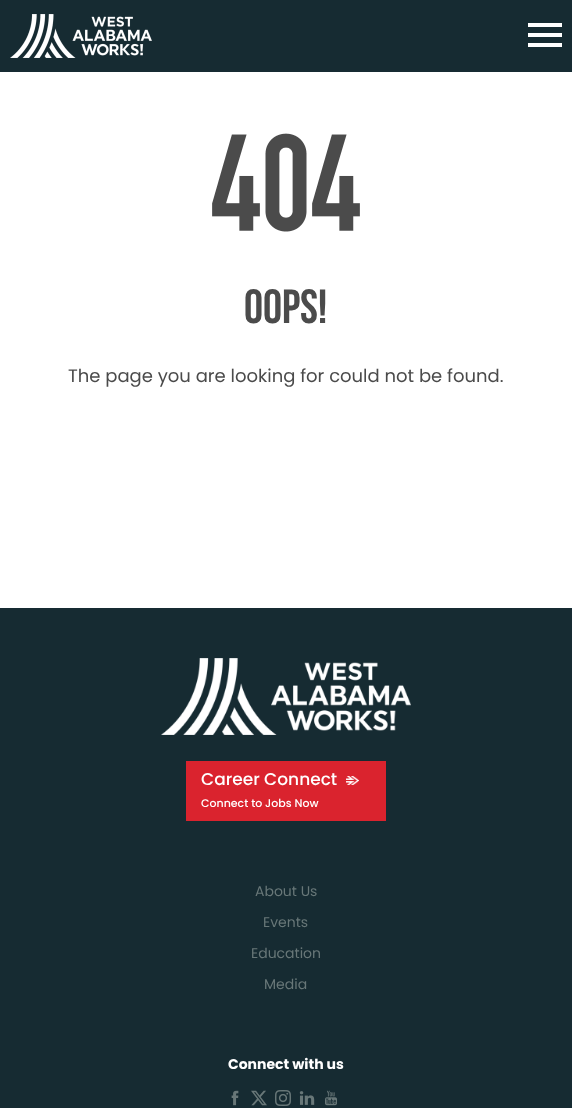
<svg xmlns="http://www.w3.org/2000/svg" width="572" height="1108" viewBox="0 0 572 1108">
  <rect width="100%" height="100%" fill="#fff"/>
  <path d="M0 0h572v72H0z" fill="#162b32"/>
  <image x="10" y="14" width="142" height="44" href="img/1.png"/>
  <path d="M528 33h34v4H528z" fill="#fff"/>
  <path d="M528 23h34v4H528z" fill="#fff"/>
  <path d="M528 43h34v4H528z" fill="#fff"/>
  <image x="212" y="133" width="148" height="99" href="img/2.png"/>
  <path d="M0 608h572v500H0z" fill="#162b32"/>
  <image x="161" y="658" width="250" height="77" href="img/3.png"/>
  <path d="M186 761h200v60H186z" fill="#da232e"/>
  <image x="346" y="776" width="13" height="9" href="img/4.png"/>
  <image x="231" y="1090" width="8" height="16" href="img/5.png"/>
  <image x="275" y="1090" width="16" height="16" href="img/6.png"/>
  <image x="299" y="1091" width="16" height="14" href="img/7.png"/>
  <image x="325" y="1090" width="12" height="16" href="img/8.png"/>
  <text x="244" y="323" font-family="Bebas Neue" font-size="48" font-weight="bold" fill="#4b4b4b">Oops!</text>
  <text x="68" y="382" font-family="Poppins" font-size="18" fill="#4b4b4b">The page you are looking for could not be found.</text>
  <text x="201" y="785" font-family="Poppins" font-size="17" font-weight="500" fill="#fff">Career Connect</text>
  <text x="201" y="807" font-family="Poppins" font-size="11" font-weight="500" fill="#fff">Connect to Jobs Now</text>
  <g font-family="Poppins" font-size="14" fill="#687778">
    <text x="255" y="896">About Us</text>
    <text x="263" y="927">Events</text>
    <text x="251" y="958">Education</text>
    <text x="264" y="989">Media</text>
  </g>
  <text x="228" y="1069" font-family="Poppins" font-size="14" font-weight="bold" fill="#fff">Connect with us</text>
  <text x="251" y="1106" font-family="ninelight" font-size="16" font-weight="300" fill="#687778">#</text>
</svg>
